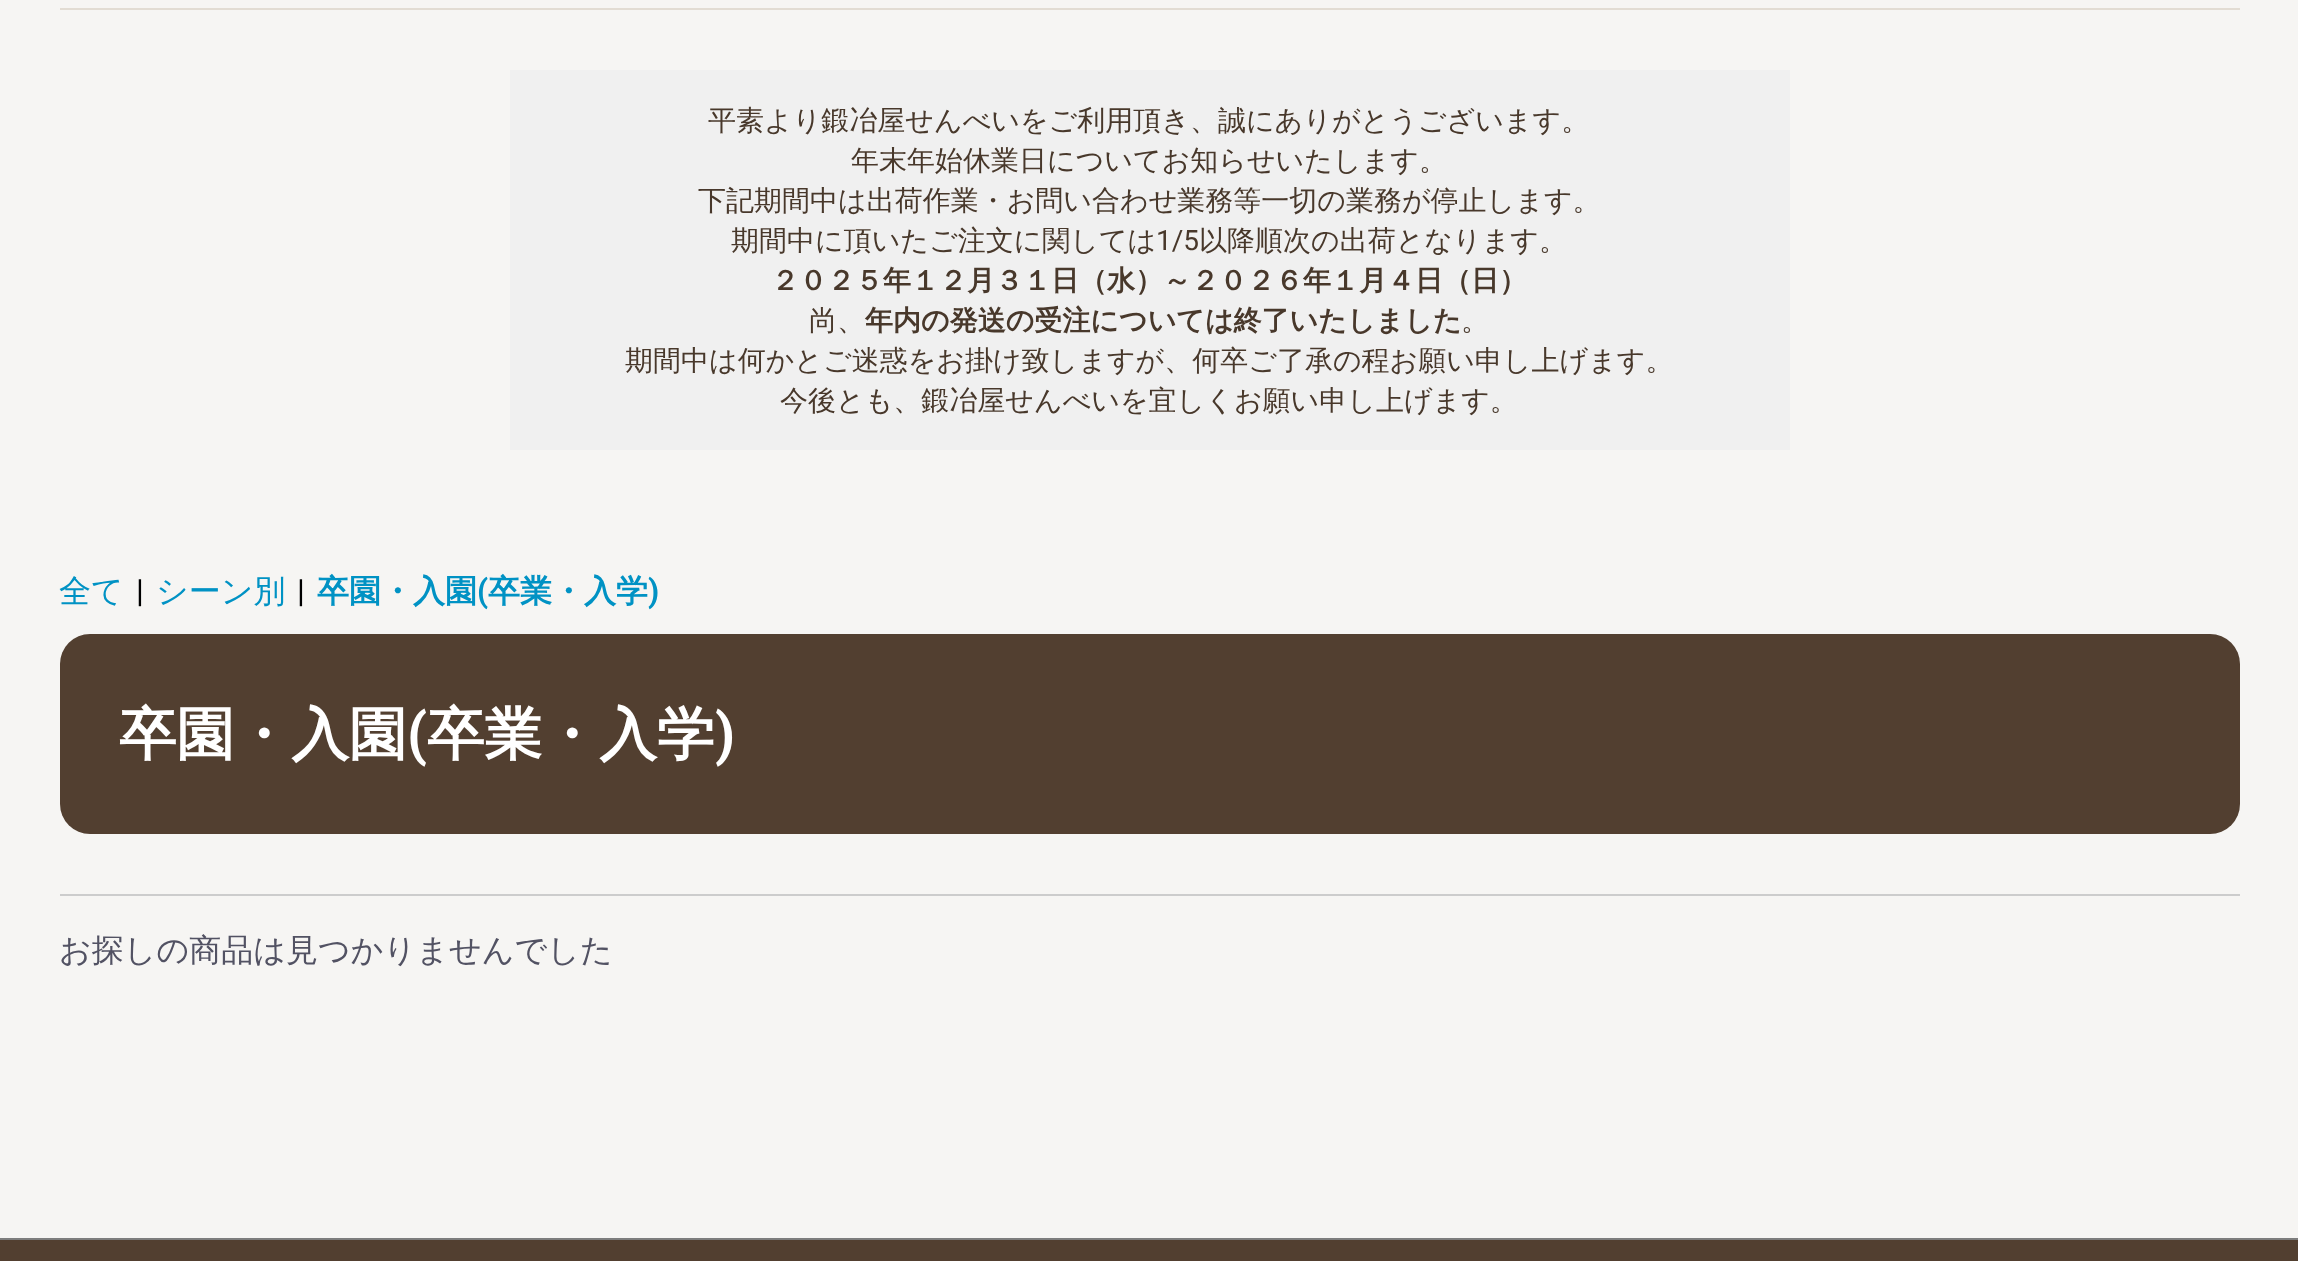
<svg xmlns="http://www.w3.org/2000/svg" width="2298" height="1261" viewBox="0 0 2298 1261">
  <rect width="100%" height="100%" fill="#f6f5f3"/>
  <path d="M60 8h2180v2H60z" fill="#e2dcd3"/>
  <path d="M510 70h1280v380H510z" fill="#f0f0f0"/>
  <rect x="60" y="634" width="2180" height="200" rx="30" fill="#523f30"/>
  <path d="M60 894h2180v2H60z" fill="#ccc"/>
  <path d="M0 1240h2298v21H0z" fill="#523f30"/>
  <path d="M0 1238h2298v2H0z" fill="#7d7d7d"/>
  <g font-family="WenQuanYi Zen Hei" font-size="28" font-weight="500" fill="#48382b">
    <text x="708" y="130">平素より鍛冶屋せんべいをご利用頂き、誠にありがとうございます。</text>
    <text x="851" y="170">年末年始休業日についてお知らせいたします。</text>
    <text x="698" y="210">下記期間中は出荷作業・お問い合わせ業務等一切の業務が停止します。</text>
    <text x="731" y="250">期間中に頂いたご注文に関しては</text>
  </g>
  <text x="1156" y="250" font-family="Roboto" font-size="28" fill="#48382b">1/5</text>
  <text x="1199" y="250" font-family="WenQuanYi Zen Hei" font-size="28" font-weight="500" fill="#48382b">以降順次の出荷となります。</text>
  <text x="771" y="290" font-family="WenQuanYi Zen Hei" font-size="28" font-weight="bold" fill="#48382b">２０２５年１２月３１日（水）～２０２６年１月４日（日）</text>
  <text x="809" y="330" font-family="WenQuanYi Zen Hei" font-size="28" font-weight="500" fill="#48382b">尚、</text>
  <text x="865" y="330" font-family="WenQuanYi Zen Hei" font-size="28" font-weight="bold" fill="#48382b">年内の発送の受注については終了いたしました</text>
  <g font-family="WenQuanYi Zen Hei" font-size="28" font-weight="500" fill="#48382b">
    <text x="1461" y="330">。</text>
    <text x="625" y="370">期間中は何かとご迷惑をお掛け致しますが、何卒ご了承の程お願い申し上げます。</text>
    <text x="780" y="410">今後とも、鍛冶屋せんべいを宜しくお願い申し上げます。</text>
  </g>
  <text x="59" y="602" font-family="WenQuanYi Zen Hei" font-size="32" font-weight="500" fill="#0092c4">全て</text>
  <text x="136" y="602" font-family="Roboto" font-size="32" fill="#000">|</text>
  <text x="156" y="602" font-family="WenQuanYi Zen Hei" font-size="32" font-weight="500" fill="#0092c4">シーン別</text>
  <text x="297" y="602" font-family="Roboto" font-size="32" fill="#000">|</text>
  <text x="317" y="602" font-family="WenQuanYi Zen Hei" font-size="32" font-weight="bold" fill="#0092c4">卒園・入園</text>
  <text x="477" y="602" font-family="Roboto" font-size="32" font-weight="bold" fill="#0092c4">(</text>
  <text x="488" y="602" font-family="WenQuanYi Zen Hei" font-size="32" font-weight="bold" fill="#0092c4">卒業・入学</text>
  <text x="648" y="602" font-family="Roboto" font-size="32" font-weight="bold" fill="#0092c4">)</text>
  <text x="119" y="754" font-family="WenQuanYi Zen Hei" font-size="57.5" font-weight="bold" fill="#fff">卒園・入園</text>
  <text x="407" y="754" font-family="Roboto" font-size="57.5" font-weight="bold" fill="#fff">(</text>
  <text x="427" y="754" font-family="WenQuanYi Zen Hei" font-size="57.5" font-weight="bold" fill="#fff">卒業・入学</text>
  <text x="715" y="754" font-family="Roboto" font-size="57.5" font-weight="bold" fill="#fff">)</text>
  <text x="59" y="961" font-family="WenQuanYi Zen Hei" font-size="32" font-weight="500" fill="#525263">お探しの商品は見つかりませんでした</text>
</svg>
